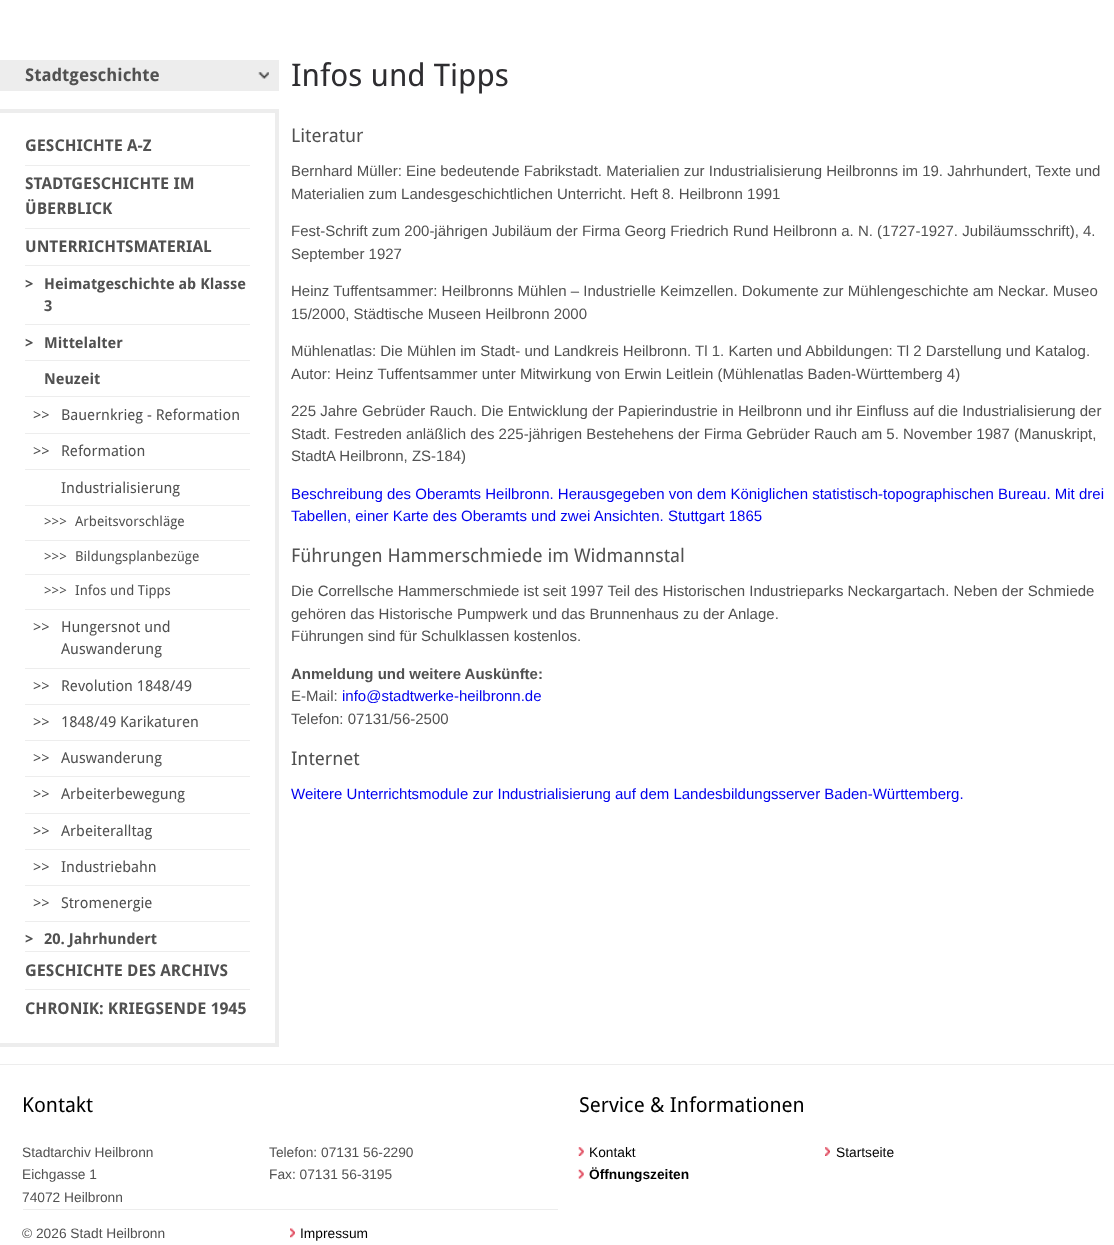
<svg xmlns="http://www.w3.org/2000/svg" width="1114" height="1245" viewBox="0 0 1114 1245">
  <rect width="100%" height="100%" fill="#fff"/>
  <path d="M0 60h279v31H0z" fill="#ededed"/>
  <image x="258" y="72" width="11" height="7" href="img/1.png"/>
  <path d="M0 109h279v4H0z" fill="#ededed"/>
  <path d="M275 109h4v937H275z" fill="#ededed"/>
  <path d="M0 1043h279v4H0z" fill="#ededed"/>
  <path d="M25 165h225v1H25z" fill="#ededed"/>
  <path d="M25 228h225v1H25z" fill="#ededed"/>
  <path d="M25 265h225v1H25z" fill="#ededed"/>
  <path d="M25 324h225v1H25z" fill="#ededed"/>
  <path d="M25 360h225v1H25z" fill="#ededed"/>
  <path d="M25 396h225v1H25z" fill="#ededed"/>
  <path d="M25 433h225v1H25z" fill="#ededed"/>
  <path d="M25 469h225v1H25z" fill="#ededed"/>
  <path d="M25 505h225v1H25z" fill="#ededed"/>
  <path d="M25 540h225v1H25z" fill="#ededed"/>
  <path d="M25 574h225v1H25z" fill="#ededed"/>
  <path d="M25 609h225v1H25z" fill="#ededed"/>
  <path d="M25 668h225v1H25z" fill="#ededed"/>
  <path d="M25 704h225v1H25z" fill="#ededed"/>
  <path d="M25 740h225v1H25z" fill="#ededed"/>
  <path d="M25 776h225v1H25z" fill="#ededed"/>
  <path d="M25 813h225v1H25z" fill="#ededed"/>
  <path d="M25 849h225v1H25z" fill="#ededed"/>
  <path d="M25 885h225v1H25z" fill="#ededed"/>
  <path d="M25 921h225v1H25z" fill="#ededed"/>
  <path d="M25 951h225v1H25z" fill="#ededed"/>
  <path d="M25 989h225v1H25z" fill="#ededed"/>
  <path d="M0 1064h1114v1H0z" fill="#ededed"/>
  <image x="578" y="1147" width="6" height="9" href="img/2.png"/>
  <image x="578" y="1169" width="6" height="10" href="img/3.png"/>
  <image x="825" y="1147" width="5" height="9" href="img/4.png"/>
  <path d="M23 1209h535v1H23z" fill="#ededed"/>
  <image x="290" y="1228" width="5" height="10" href="img/5.png"/>
  <text x="25" y="81" font-family="Droid Sans" font-size="17.5" font-weight="bold" fill="#515151">Stadtgeschichte</text>
  <g font-family="Droid Sans" font-size="16.25" font-weight="bold" fill="#515151">
    <text x="25" y="151">GESCHICHTE A-Z</text>
    <text x="25" y="189">STADTGESCHICHTE IM</text>
    <text x="25" y="214">ÜBERBLICK</text>
    <text x="25" y="252">UNTERRICHTSMATERIAL</text>
  </g>
  <g font-family="Droid Sans" font-size="15" font-weight="bold" fill="#515151">
    <text x="25" y="289">&gt;</text>
    <text x="44" y="289">Heimatgeschichte ab Klasse</text>
    <text x="44" y="311">3</text>
    <text x="25" y="348">&gt;</text>
    <text x="44" y="348">Mittelalter</text>
    <text x="44" y="384">Neuzeit</text>
  </g>
  <g font-family="Droid Sans" font-size="15" fill="#515151">
    <text x="33" y="420">&gt;&gt;</text>
    <text x="61" y="420">Bauernkrieg - Reformation</text>
    <text x="33" y="456">&gt;&gt;</text>
    <text x="61" y="456">Reformation</text>
    <text x="61" y="493">Industrialisierung</text>
  </g>
  <g font-family="Droid Sans" font-size="13.75" fill="#515151">
    <text x="44" y="526">&gt;&gt;&gt;</text>
    <text x="75" y="526">Arbeitsvorschläge</text>
    <text x="44" y="561">&gt;&gt;&gt;</text>
    <text x="75" y="561">Bildungsplanbezüge</text>
    <text x="44" y="595">&gt;&gt;&gt;</text>
    <text x="75" y="595">Infos und Tipps</text>
  </g>
  <g font-family="Droid Sans" font-size="15" fill="#515151">
    <text x="33" y="632">&gt;&gt;</text>
    <text x="61" y="632">Hungersnot und</text>
    <text x="61" y="654">Auswanderung</text>
    <text x="33" y="691">&gt;&gt;</text>
    <text x="61" y="691">Revolution 1848/49</text>
    <text x="33" y="727">&gt;&gt;</text>
    <text x="61" y="727">1848/49 Karikaturen</text>
    <text x="33" y="763">&gt;&gt;</text>
    <text x="61" y="763">Auswanderung</text>
    <text x="33" y="799">&gt;&gt;</text>
    <text x="61" y="799">Arbeiterbewegung</text>
    <text x="33" y="836">&gt;&gt;</text>
    <text x="61" y="836">Arbeiteralltag</text>
    <text x="33" y="872">&gt;&gt;</text>
    <text x="61" y="872">Industriebahn</text>
    <text x="33" y="908">&gt;&gt;</text>
    <text x="61" y="908">Stromenergie</text>
  </g>
  <g font-family="Droid Sans" font-size="15" font-weight="bold" fill="#515151">
    <text x="25" y="944">&gt;</text>
    <text x="44" y="944">20. Jahrhundert</text>
  </g>
  <g font-family="Droid Sans" font-size="16.25" font-weight="bold" fill="#515151">
    <text x="25" y="976">GESCHICHTE DES ARCHIVS</text>
    <text x="25" y="1014">CHRONIK: KRIEGSENDE 1945</text>
  </g>
  <text x="291" y="86" font-family="Droid Sans" font-size="31.25" fill="#2e2d30">Infos und Tipps</text>
  <text x="291" y="142" font-family="Droid Sans" font-size="18.75" fill="#515151">Literatur</text>
  <g font-family="Liberation Sans" font-size="15" fill="#515151">
    <text x="291" y="176">Bernhard Müller: Eine bedeutende Fabrikstadt. Materialien zur Industrialisierung Heilbronns im 19. Jahrhundert, Texte und</text>
    <text x="291" y="199">Materialien zum Landesgeschichtlichen Unterricht. Heft 8. Heilbronn 1991</text>
    <text x="291" y="236">Fest-Schrift zum 200-jährigen Jubiläum der Firma Georg Friedrich Rund Heilbronn a. N. (1727-1927. Jubiläumsschrift), 4.</text>
    <text x="291" y="259">September 1927</text>
    <text x="291" y="296">Heinz Tuffentsammer: Heilbronns Mühlen – Industrielle Keimzellen. Dokumente zur Mühlengeschichte am Neckar. Museo</text>
    <text x="291" y="319">15/2000, Städtische Museen Heilbronn 2000</text>
    <text x="291" y="356">Mühlenatlas: Die Mühlen im Stadt- und Landkreis Heilbronn. Tl 1. Karten und Abbildungen: Tl 2 Darstellung und Katalog.</text>
    <text x="291" y="379">Autor: Heinz Tuffentsammer unter Mitwirkung von Erwin Leitlein (Mühlenatlas Baden-Württemberg 4)</text>
    <text x="291" y="416">225 Jahre Gebrüder Rauch. Die Entwicklung der Papierindustrie in Heilbronn und ihr Einfluss auf die Industrialisierung der</text>
    <text x="291" y="439">Stadt. Festreden anläßlich des 225-jährigen Bestehehens der Firma Gebrüder Rauch am 5. November 1987 (Manuskript,</text>
    <text x="291" y="461">StadtA Heilbronn, ZS-184)</text>
  </g>
  <g font-family="Liberation Sans" font-size="15" fill="#00e">
    <text x="291" y="499">Beschreibung des Oberamts Heilbronn. Herausgegeben von dem Königlichen statistisch-topographischen Bureau. Mit drei</text>
    <text x="291" y="521">Tabellen, einer Karte des Oberamts und zwei Ansichten. Stuttgart 1865</text>
  </g>
  <text x="291" y="562" font-family="Droid Sans" font-size="18.75" fill="#515151">Führungen Hammerschmiede im Widmannstal</text>
  <g font-family="Liberation Sans" font-size="15" fill="#515151">
    <text x="291" y="596">Die Correllsche Hammerschmiede ist seit 1997 Teil des Historischen Industrieparks Neckargartach. Neben der Schmiede</text>
    <text x="291" y="619">gehören das Historische Pumpwerk und das Brunnenhaus zu der Anlage.</text>
    <text x="291" y="641">Führungen sind für Schulklassen kostenlos.</text>
  </g>
  <text x="291" y="679" font-family="Liberation Sans" font-size="15" font-weight="bold" fill="#515151">Anmeldung und weitere Auskünfte:</text>
  <text x="291" y="701" font-family="Liberation Sans" font-size="15" fill="#515151">E-Mail:</text>
  <text x="342" y="701" font-family="Liberation Sans" font-size="15" fill="#00e">info@stadtwerke-heilbronn.de</text>
  <text x="291" y="724" font-family="Liberation Sans" font-size="15" fill="#515151">Telefon: 07131/56-2500</text>
  <text x="291" y="765" font-family="Droid Sans" font-size="18.75" fill="#515151">Internet</text>
  <text x="291" y="799" font-family="Liberation Sans" font-size="15" fill="#00e">Weitere Unterrichtsmodule zur Industrialisierung auf dem Landesbildungsserver Baden-Württemberg.</text>
  <text x="22" y="1112" font-family="Droid Sans" font-size="20.6" fill="#000">Kontakt</text>
  <g font-family="Liberation Sans" font-size="13.75" fill="#515151">
    <text x="22" y="1157">Stadtarchiv Heilbronn</text>
    <text x="22" y="1179">Eichgasse 1</text>
    <text x="22" y="1202">74072 Heilbronn</text>
    <text x="269" y="1157">Telefon: 07131 56-2290</text>
    <text x="269" y="1179">Fax: 07131 56-3195</text>
  </g>
  <text x="579" y="1112" font-family="Droid Sans" font-size="20.6" fill="#000">Service &amp; Informationen</text>
  <text x="589" y="1157" font-family="Liberation Sans" font-size="13.75" fill="#000">Kontakt</text>
  <text x="589" y="1179" font-family="Liberation Sans" font-size="13.75" font-weight="bold" fill="#000">Öffnungszeiten</text>
  <text x="836" y="1157" font-family="Liberation Sans" font-size="13.75" fill="#000">Startseite</text>
  <text x="22" y="1238" font-family="Liberation Sans" font-size="13.75" fill="#515151">© 2026 Stadt Heilbronn</text>
  <text x="300" y="1238" font-family="Liberation Sans" font-size="13.75" fill="#000">Impressum</text>
</svg>
